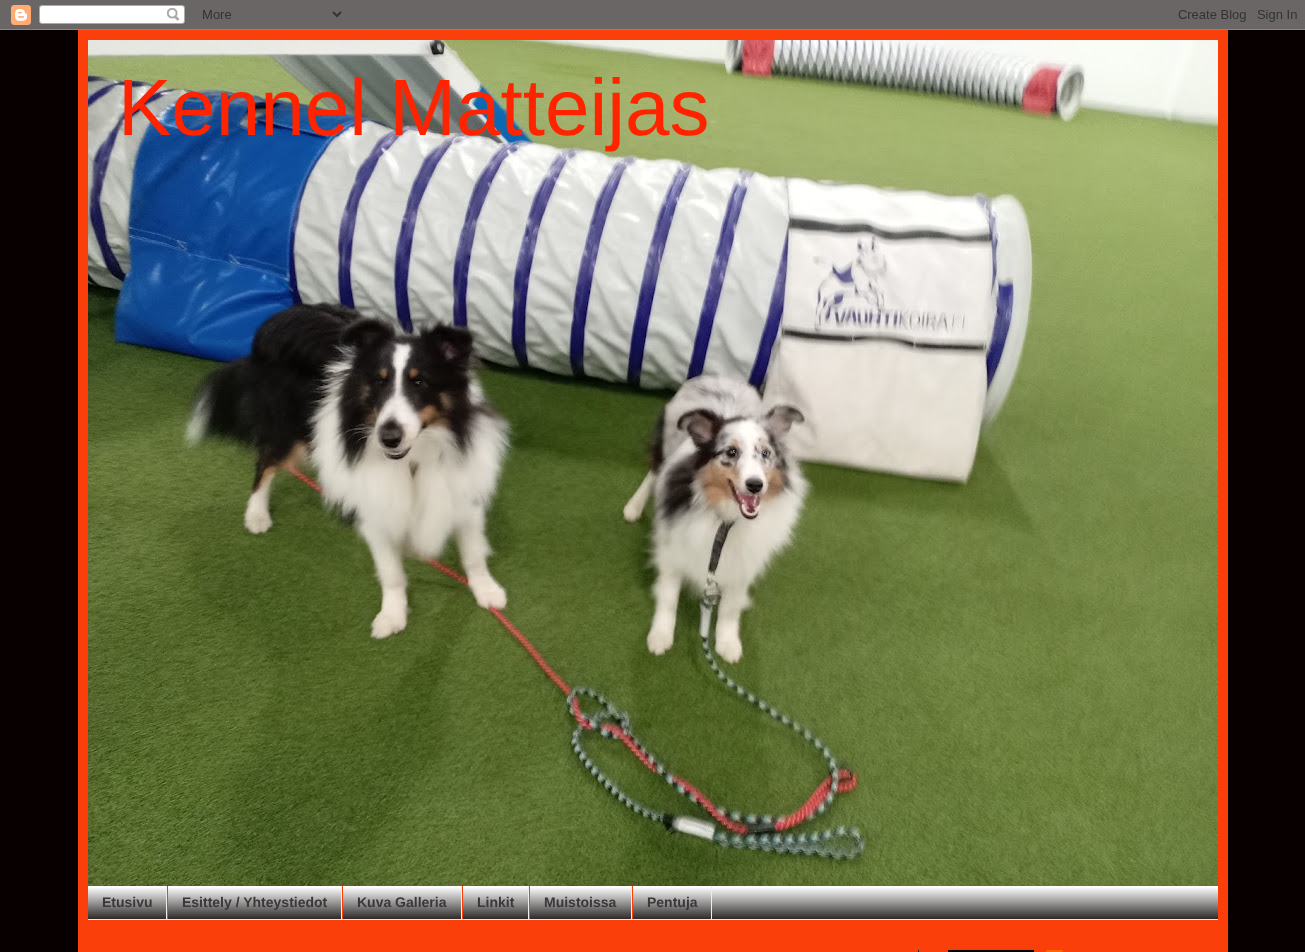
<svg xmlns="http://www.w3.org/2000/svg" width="1305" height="952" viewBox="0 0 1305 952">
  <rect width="100%" height="100%" fill="#080000"/>
  <image x="0" y="0" width="1305" height="30" href="img/1.png"/>
  <path d="M78 30h1150v922H78z" fill="#fa3f0a"/>
  <image x="88" y="40" width="1130" height="846" href="img/2.png"/>
  <path d="M88 887h1130v32H88z" fill="#080000"/>
  <image x="88" y="886" width="1130" height="33" href="img/3.png"/>
  <path d="M88 919h1130v1H88z" fill="#eee"/>
  <path d="M166 886h1v33H166z" fill="#eee"/>
  <path d="M341 886h1v33H341z" fill="#eee"/>
  <path d="M167 886h1v33H167z" fill="#fa3f0a"/>
  <path d="M461 886h1v33H461z" fill="#eee"/>
  <path d="M342 886h1v33H342z" fill="#fa3f0a"/>
  <path d="M528 886h1v33H528z" fill="#eee"/>
  <path d="M462 886h1v33H462z" fill="#fa3f0a"/>
  <path d="M631 886h1v33H631z" fill="#eee"/>
  <path d="M529 886h1v33H529z" fill="#fa3f0a"/>
  <path d="M711 886h1v33H711z" fill="#eee"/>
  <path d="M632 886h1v33H632z" fill="#fa3f0a"/>
  <path d="M918 950h1v2H918z" fill="#222"/>
  <path d="M949 951h86v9H949z" fill="#0000001a" filter="blur(2.5px)"/>
  <path d="M948.5 950.5h85v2H948.5z" fill="#080000" stroke="#000"/>
  <image x="1046" y="950" width="17" height="2" href="img/4.png"/>
  <text x="118" y="135" font-family="Liberation Sans" font-size="80" fill="#ff2300">Kennel Matteijas</text>
  <g font-family="Liberation Sans" font-size="14" font-weight="bold" fill="#393939">
    <text x="102" y="907">Etusivu</text>
    <text x="182" y="907">Esittely / Yhteystiedot</text>
    <text x="357" y="907">Kuva Galleria</text>
    <text x="477" y="907">Linkit</text>
    <text x="544" y="907">Muistoissa</text>
    <text x="647" y="907">Pentuja</text>
  </g>
</svg>
